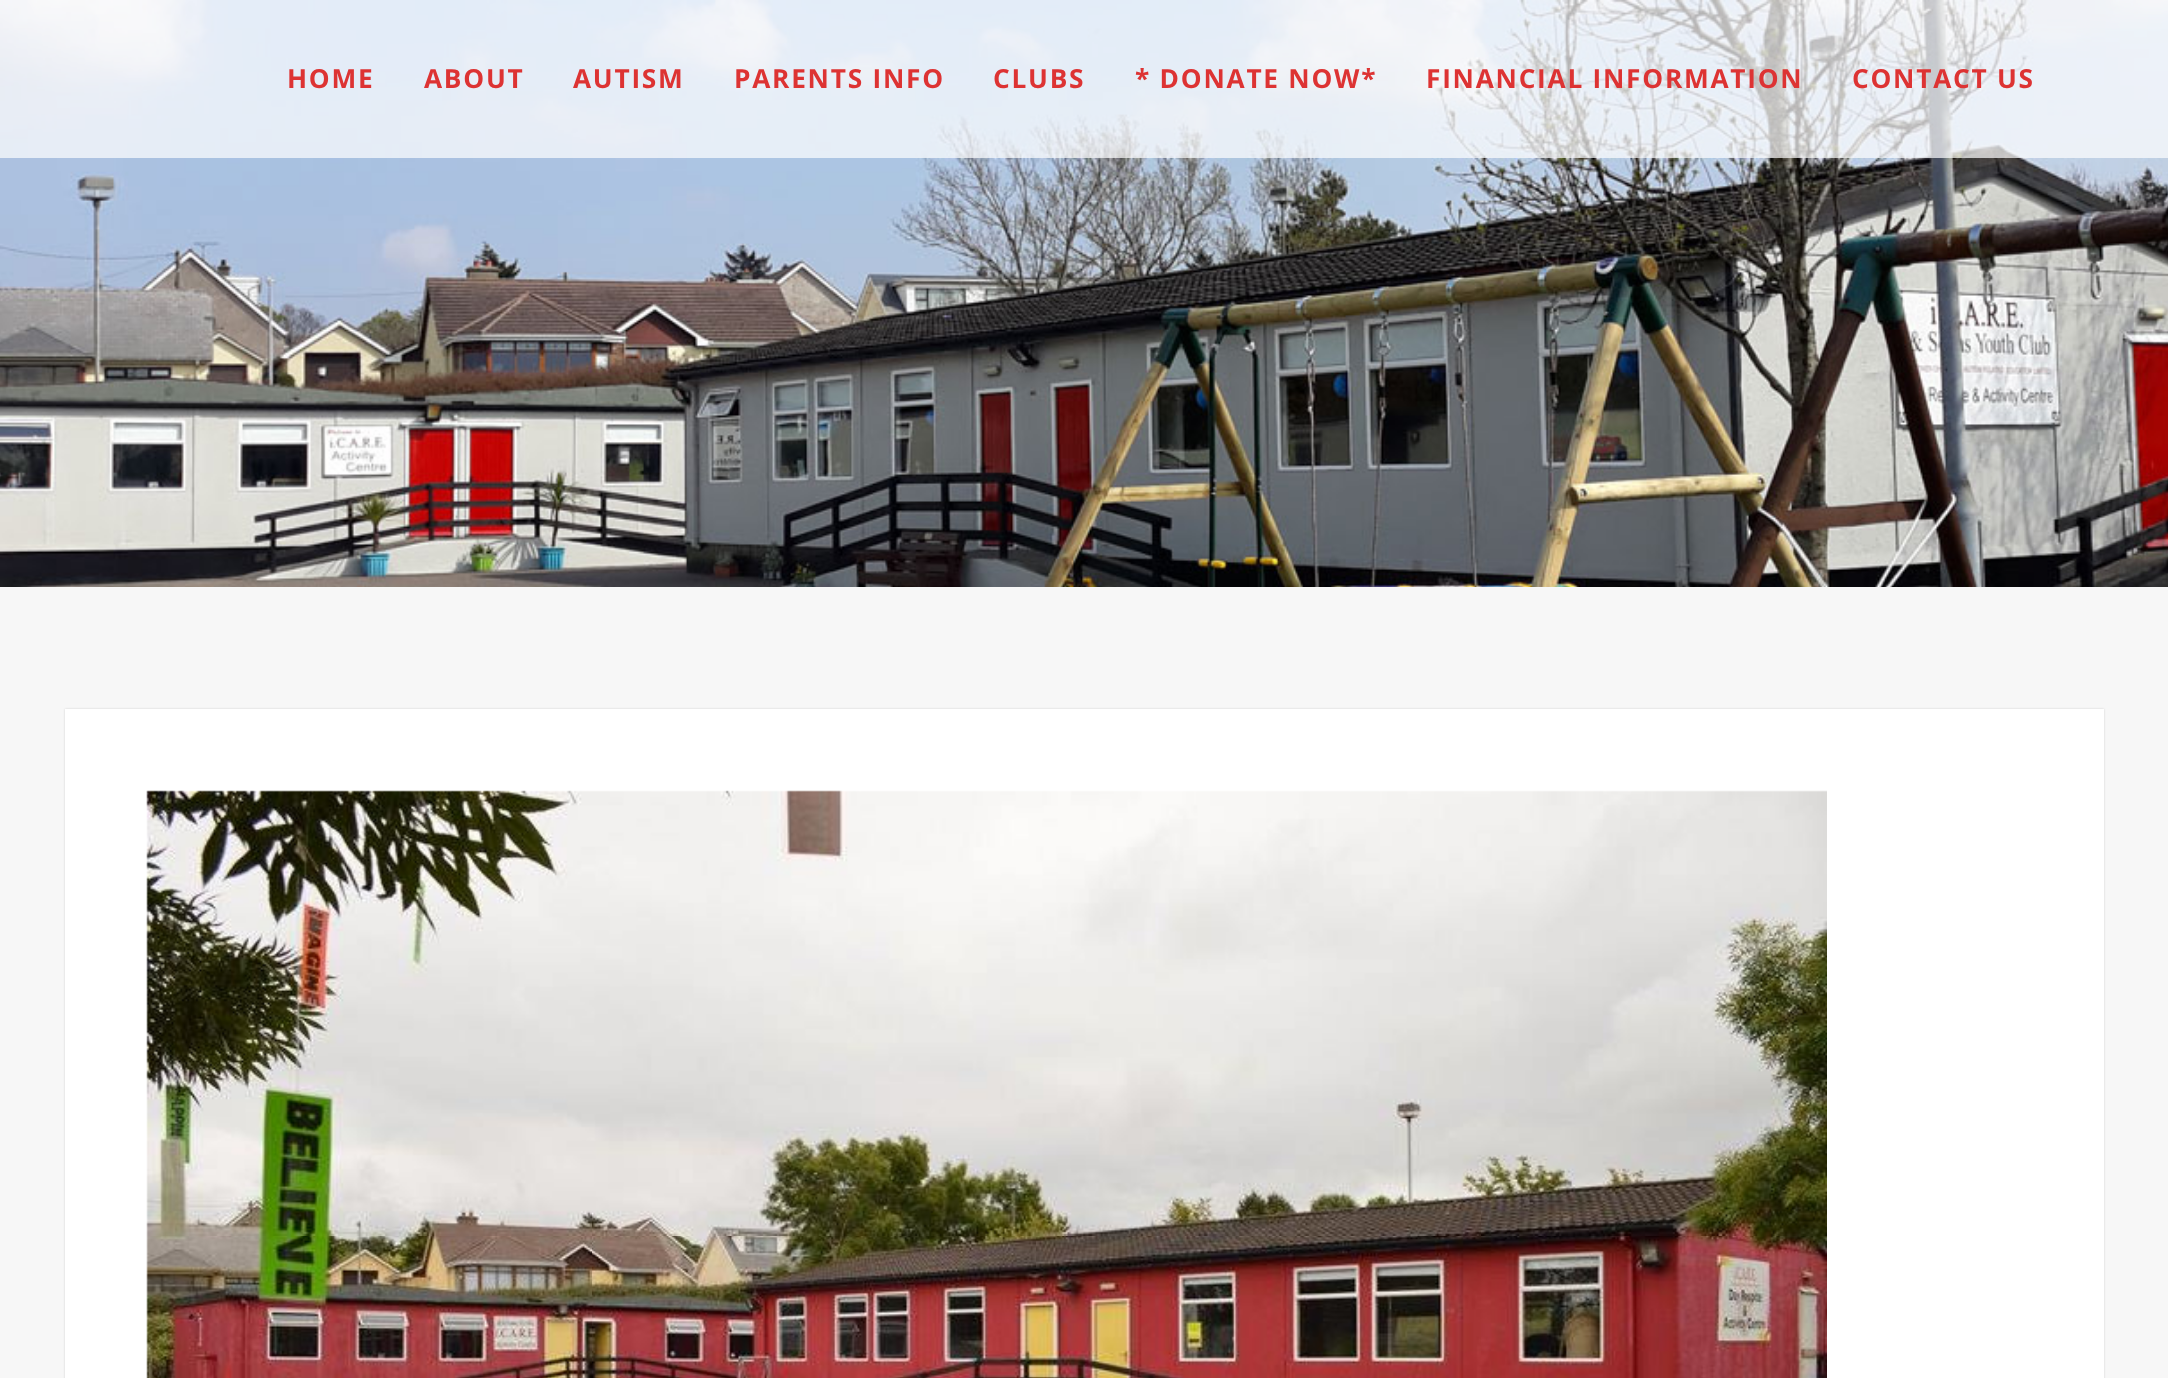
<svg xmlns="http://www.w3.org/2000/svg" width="2168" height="1378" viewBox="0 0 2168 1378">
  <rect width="100%" height="100%" fill="#f7f7f7"/>
  <image x="0" y="0" width="2168" height="587" href="img/1.png"/>
  <path d="M0 0h2168v158H0z" fill="#ffffffb3"/>
  <path d="M65 709h2039v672H65z" fill="#00000026" filter="blur(1px)"/>
  <path d="M65 709h2039v669H65z" fill="#fff"/>
  <image x="146" y="790" width="1681" height="588" href="img/2.png"/>
  <g font-family="Open Sans" font-size="26.25" font-weight="bold" letter-spacing="1.75" fill="#d33">
    <text x="287" y="88">HOME</text>
    <text x="424" y="88">ABOUT</text>
    <text x="573" y="88">AUTISM</text>
    <text x="734" y="88">PARENTS INFO</text>
    <text x="993" y="88">CLUBS</text>
    <text x="1135" y="88">* DONATE NOW*</text>
    <text x="1426" y="88">FINANCIAL INFORMATION</text>
    <text x="1852" y="88">CONTACT US</text>
  </g>
</svg>
